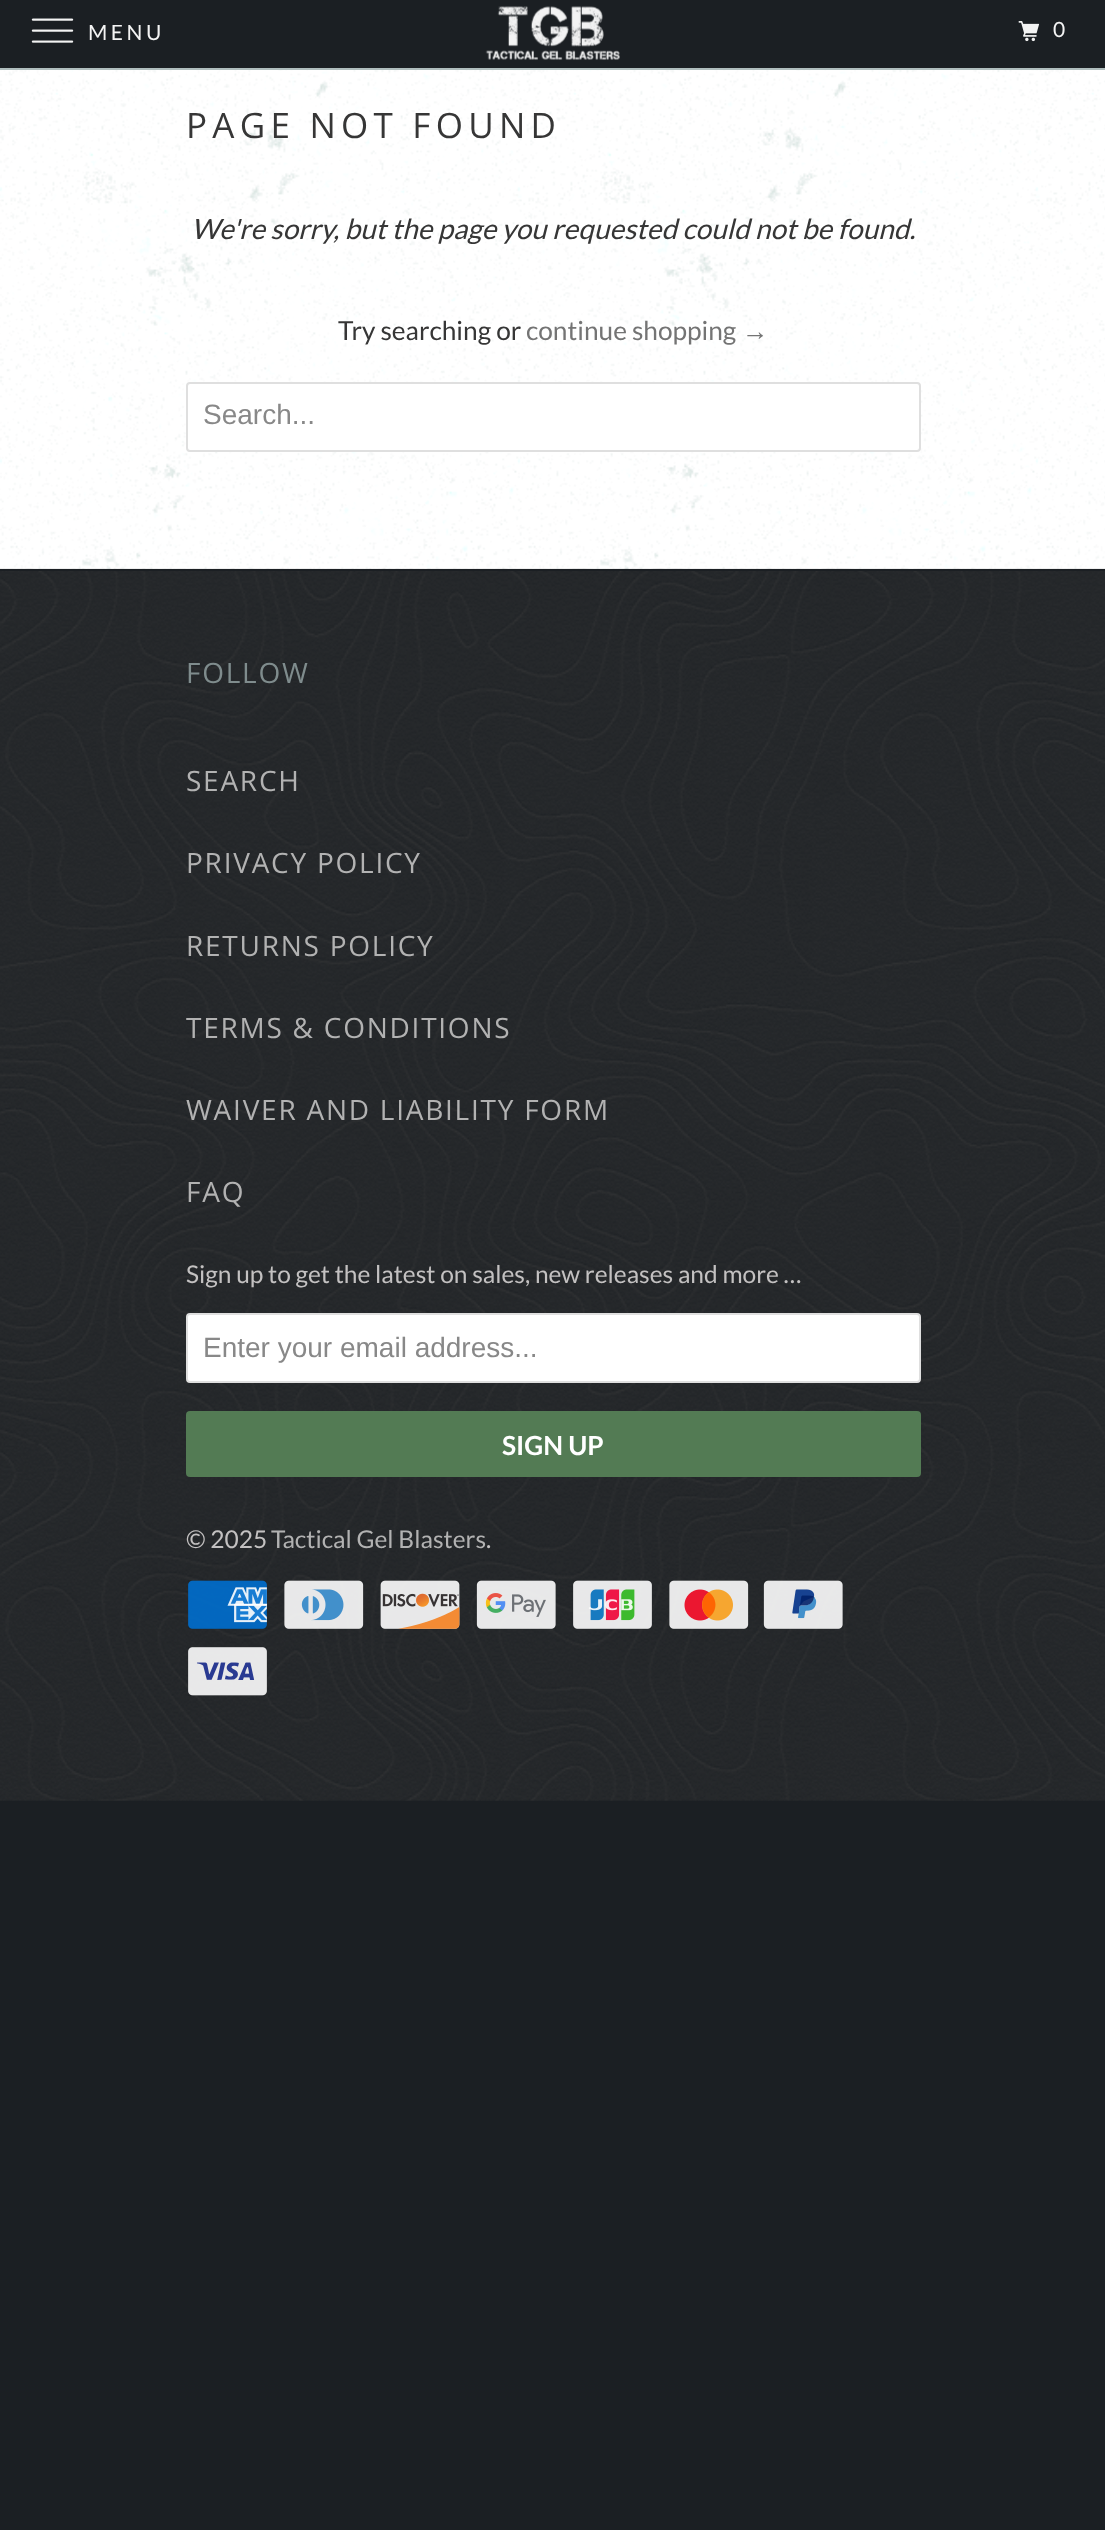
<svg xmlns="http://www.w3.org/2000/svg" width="1105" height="2530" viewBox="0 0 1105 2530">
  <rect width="100%" height="100%" fill="#1b1f23"/>
  <path d="M0 68h1105v2H0z" fill="#b0bebe"/>
  <image x="31" y="18" width="43" height="25" href="img/1.png"/>
  <image x="485" y="6" width="135" height="54" href="img/2.png"/>
  <image x="1018" y="21" width="22" height="21" href="img/3.png"/>
  <path d="M0 70h1105v499H0z" fill="#fff"/>
  <image x="0" y="70" width="1105" height="499" href="img/4.png"/>
  <rect x="187" y="383" width="733" height="68" rx="3" fill="#fff" stroke="#dfdfdf" stroke-width="2"/>
  <image x="0" y="568" width="1105" height="1233" href="img/5.png"/>
  <path d="M0 569h1105v2H0z" fill="#1b1f23"/>
  <rect x="187" y="1314" width="733" height="68" rx="3" fill="#fff" stroke="#dfdfdf" stroke-width="2"/>
  <rect x="186" y="1411" width="735" height="66" rx="4" fill="#537b54"/>
  <image x="188" y="1580" width="79" height="49" href="img/6.png"/>
  <image x="284" y="1580" width="80" height="49" href="img/7.png"/>
  <image x="380" y="1580" width="80" height="49" href="img/8.png"/>
  <image x="476" y="1580" width="80" height="49" href="img/9.png"/>
  <image x="573" y="1580" width="79" height="49" href="img/10.png"/>
  <image x="669" y="1580" width="80" height="49" href="img/11.png"/>
  <image x="763" y="1580" width="80" height="49" href="img/12.png"/>
  <image x="188" y="1647" width="79" height="49" href="img/13.png"/>
  <g font-family="Lato" font-size="21" letter-spacing="3.5" fill="#f4f4f4">
    <text x="88" y="40">MENU</text>
    <text x="1053" y="37">0</text>
  </g>
  <text x="186" y="138" font-family="Open Sans" font-size="35" letter-spacing="5.25" fill="#363636">PAGE NOT FOUND</text>
  <text x="191" y="239" font-family="Lato" font-size="28" font-style="italic" fill="#363636">We're sorry, but the page you requested could not be found.</text>
  <text x="338" y="340" font-family="Lato" font-size="26.25" fill="#363636">Try searching or</text>
  <text x="526" y="340" font-family="Lato" font-size="26.25" fill="#747474">continue shopping</text>
  <text x="742" y="340" font-family="Liberation Serif" font-size="26.25" fill="#747474">→</text>
  <text x="203" y="424" font-family="Liberation Sans" font-size="28" fill="#888">Search...</text>
  <text x="186" y="683" font-family="Open Sans" font-size="28" letter-spacing="1.75" fill="#7f8c8d">FOLLOW</text>
  <g font-family="Open Sans" font-size="28" letter-spacing="1.75" fill="#b2b2b2">
    <text x="186" y="791">SEARCH</text>
    <text x="186" y="873">PRIVACY POLICY</text>
    <text x="186" y="956">RETURNS POLICY</text>
    <text x="186" y="1038">TERMS &amp; CONDITIONS</text>
    <text x="186" y="1120">WAIVER AND LIABILITY FORM</text>
    <text x="186" y="1202">FAQ</text>
  </g>
  <text x="186" y="1283" font-family="Lato" font-size="24.5" fill="#c3c1c1">Sign up to get the latest on sales, new releases and more …</text>
  <text x="203" y="1357" font-family="Liberation Sans" font-size="28" fill="#888">Enter your email address...</text>
  <text x="502" y="1455" font-family="Lato" font-size="26.25" font-weight="bold" fill="#fff">SIGN UP</text>
  <text x="186" y="1548" font-family="Lato" font-size="24.5" fill="#c3c1c1">© 2025</text>
  <text x="271" y="1548" font-family="Lato" font-size="24.5" fill="#b2b2b2">Tactical Gel Blasters</text>
  <text x="486" y="1548" font-family="Lato" font-size="24.5" fill="#c3c1c1">.</text>
</svg>
